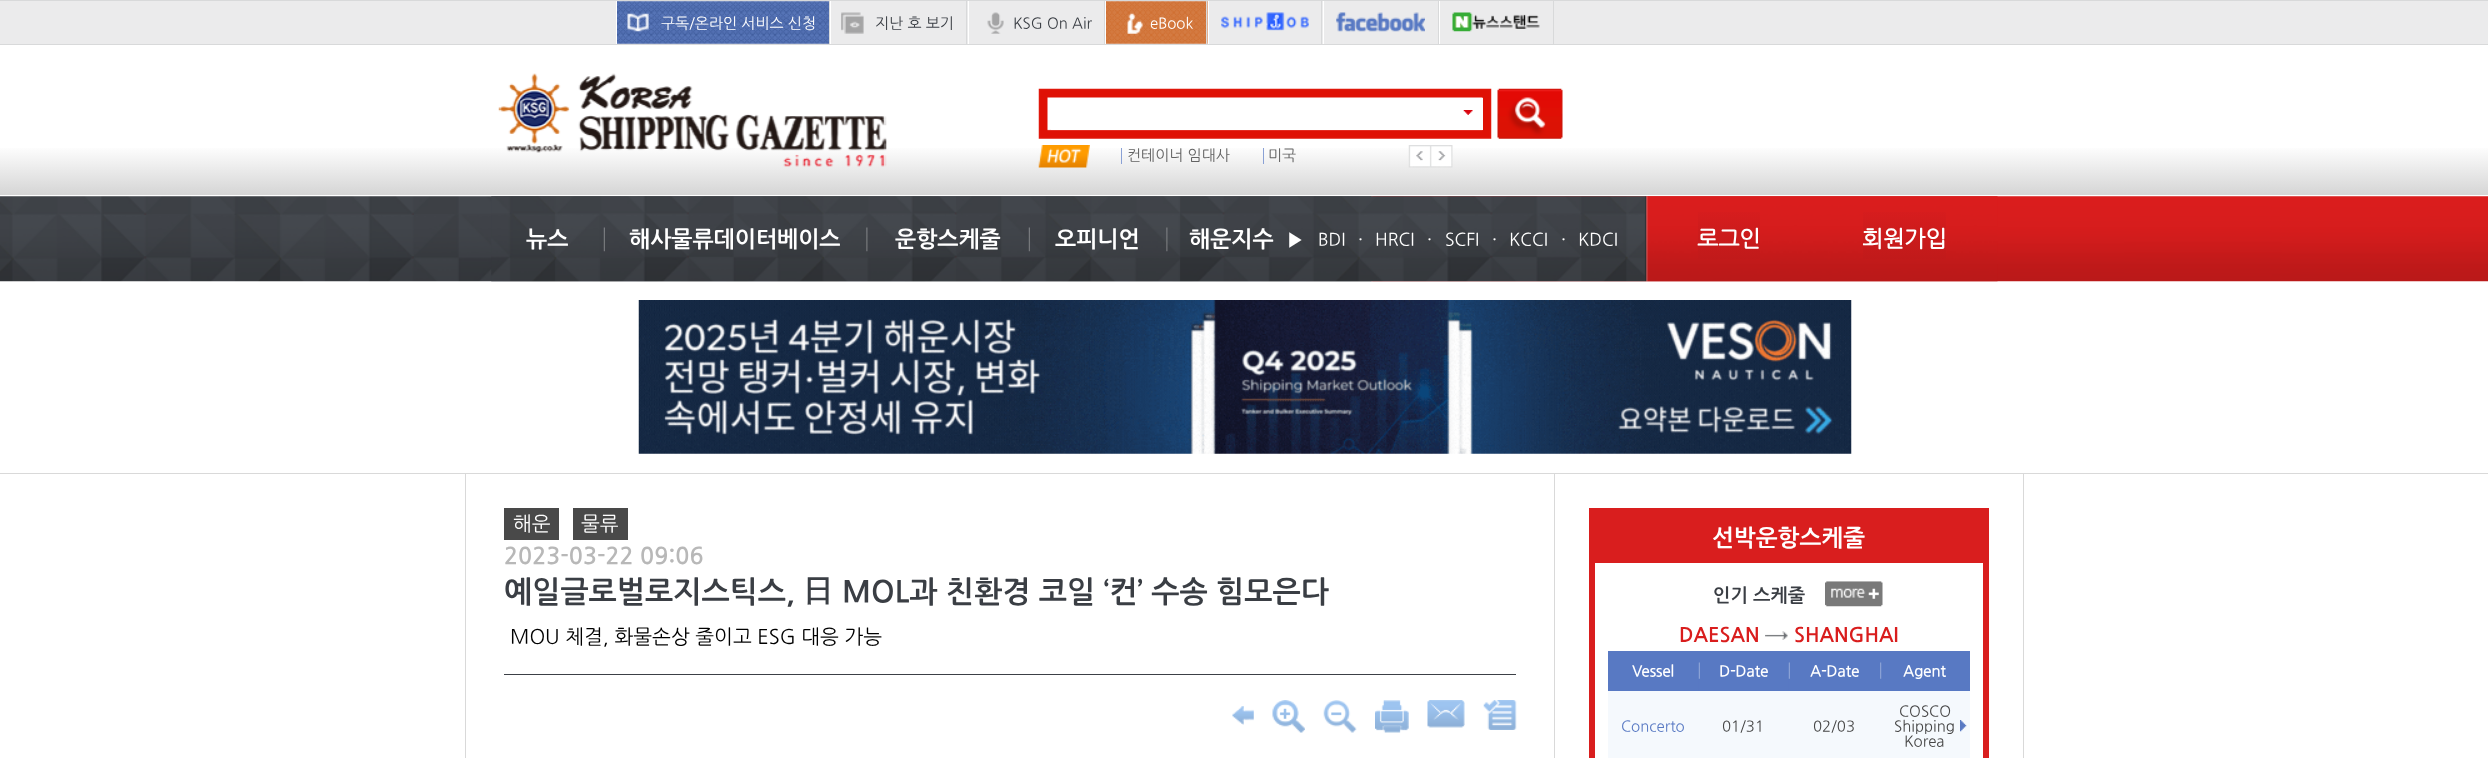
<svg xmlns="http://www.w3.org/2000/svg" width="2488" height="758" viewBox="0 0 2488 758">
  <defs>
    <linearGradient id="g1" gradientUnits="userSpaceOnUse" x1="1244" y1="45" x2="1244" y2="195"><stop offset="0" stop-color="#fff"/><stop offset="0.67" stop-color="#fff"/><stop offset="1" stop-color="#d5d5d5"/></linearGradient>
    <linearGradient id="g2" gradientUnits="userSpaceOnUse" x1="1729" y1="204" x2="1729" y2="274"><stop offset="0" stop-color="#da1d1e"/><stop offset="1" stop-color="#ba1919"/></linearGradient>
    <linearGradient id="g3" gradientUnits="userSpaceOnUse" x1="1904" y1="204" x2="1904" y2="274"><stop offset="0" stop-color="#da1d1e"/><stop offset="1" stop-color="#ba1919"/></linearGradient>
  </defs>
  <rect width="100%" height="100%" fill="#fff"/>
  <path d="M0 1h2488v43H0z" fill="#ebebec"/>
  <path d="M0 0h2488v1H0z" fill="#d8d9da"/>
  <path d="M0 44h2488v1H0z" fill="#d8d9da"/>
  <image x="617" y="1" width="212" height="43" href="img/1.png"/>
  <path d="M829 1h1v43H829z" fill="#d8d9da"/>
  <path d="M616 1h1v43H616z" fill="#fff"/>
  <image x="627" y="13" width="22" height="19" href="img/2.png"/>
  <path d="M966 1h1v43H966z" fill="#d8d9da"/>
  <path d="M830 1h1v43H830z" fill="#fff"/>
  <image x="841" y="12" width="23" height="22" href="img/3.png"/>
  <path d="M1104 1h1v43H1104z" fill="#d8d9da"/>
  <path d="M968 1h1v43H968z" fill="#fff"/>
  <image x="987" y="12" width="17" height="22" href="img/4.png"/>
  <image x="1106" y="1" width="102" height="43" href="img/5.png"/>
  <path d="M1206 1h1v43H1206z" fill="#d8d9da"/>
  <path d="M1105 1h1v43H1105z" fill="#fff"/>
  <image x="1127" y="13" width="16" height="21" href="img/6.png"/>
  <path d="M1321 1h1v43H1321z" fill="#d8d9da"/>
  <path d="M1208 1h1v43H1208z" fill="#fff"/>
  <image x="1221" y="12" width="88" height="19" href="img/7.png"/>
  <path d="M1438 1h1v43H1438z" fill="#d8d9da"/>
  <path d="M1323 1h1v43H1323z" fill="#fff"/>
  <image x="1336" y="12" width="89" height="20" href="img/8.png"/>
  <path d="M1553 1h1v43H1553z" fill="#d8d9da"/>
  <path d="M1439 1h1v43H1439z" fill="#fff"/>
  <image x="1452" y="12" width="88" height="20" href="img/9.png"/>
  <path d="M0 148h2488v47H0z" fill="url(#g1)"/>
  <image x="498" y="73" width="389" height="94" href="img/10.png"/>
  <image x="1038" y="88" width="454" height="51" href="img/11.png"/>
  <path d="M1051 98h432v32H1051z" fill="#fff"/>
  <image x="1463" y="110" width="10" height="5" href="img/12.png"/>
  <image x="1497" y="88" width="66" height="51" href="img/13.png"/>
  <image x="1038" y="145" width="52" height="23" href="img/14.png"/>
  <path d="M1121 148h1v16H1121z" fill="#8aa1d5"/>
  <path d="M1263 148h1v16H1263z" fill="#8aa1d5"/>
  <image x="1408" y="145" width="24" height="23" href="img/15.png"/>
  <image x="1431" y="145" width="22" height="23" href="img/16.png"/>
  <image x="0" y="196" width="2488" height="86" href="img/17.png"/>
  <image x="491" y="196" width="1507" height="86" href="img/18.png"/>
  <image x="603" y="227" width="2" height="25" href="img/19.png"/>
  <image x="866" y="227" width="2" height="25" href="img/20.png"/>
  <image x="1028" y="227" width="2" height="25" href="img/21.png"/>
  <image x="1166" y="227" width="2" height="25" href="img/22.png"/>
  <path d="M1698 212h62v47H1698z" fill="url(#g2)"/>
  <path d="M1863 212h83v47H1863z" fill="url(#g3)"/>
  <path d="M0 473h2488v1H0z" fill="#d9d9d9"/>
  <image x="638" y="300" width="1214" height="154" href="img/23.png"/>
  <path d="M2023 474h1v284H2023z" fill="#d9d9d9"/>
  <path d="M465 474h1v284H465z" fill="#d9d9d9"/>
  <path d="M504 508h55v32H504z" fill="#494949"/>
  <path d="M573 508h55v32H573z" fill="#494949"/>
  <path d="M504 674h1012v1H504z" fill="#3c4046"/>
  <image x="1232" y="706" width="22" height="19" href="img/24.png"/>
  <image x="1272" y="700" width="33" height="33" href="img/25.png"/>
  <image x="1323" y="700" width="34" height="33" href="img/26.png"/>
  <image x="1375" y="700" width="34" height="33" href="img/27.png"/>
  <image x="1427" y="700" width="38" height="28" href="img/28.png"/>
  <image x="1483" y="700" width="34" height="30" href="img/29.png"/>
  <path d="M1554 474h1v284H1554z" fill="#d9d9d9"/>
  <path d="M1589 508h400v250H1589z" fill="#d91e1e"/>
  <path d="M1595 563h388v195H1595z" fill="#fff"/>
  <image x="1825" y="581" width="58" height="26" href="img/30.png"/>
  <image x="1765" y="631" width="23" height="9" href="img/31.png"/>
  <path d="M1608 651h362v40H1608z" fill="#5879c3"/>
  <image x="1698" y="662" width="91" height="29" href="img/32.png"/>
  <image x="1788" y="662" width="92" height="29" href="img/33.png"/>
  <image x="1880" y="662" width="90" height="29" href="img/34.png"/>
  <path d="M1608 691h362v67H1608z" fill="#f5f9fd"/>
  <image x="1960" y="720" width="7" height="12" href="img/35.png"/>
  <text x="661" y="28" font-family="NanumGothic" font-size="15" fill="#fff">구독/온라인 서비스 신청</text>
  <g font-family="NanumGothic" font-size="15" fill="#3a3e44">
    <text x="875" y="28">지난 호 보기</text>
    <text x="1013" y="28">KSG On Air</text>
  </g>
  <text x="1150" y="28" font-family="NanumGothic" font-size="15" fill="#fff">eBook</text>
  <g font-family="NanumGothic" font-size="15" fill="#636363">
    <text x="1127" y="160">컨테이너 임대사</text>
    <text x="1268" y="160">미국</text>
  </g>
  <g font-family="NanumGothic" font-size="22.5" font-weight="bold" fill="#fff">
    <text x="526" y="246">뉴스</text>
    <text x="629" y="246">해사물류데이터베이스</text>
    <text x="895" y="246">운항스케줄</text>
    <text x="1055" y="246">오피니언</text>
    <text x="1189" y="246">해운지수</text>
  </g>
  <text x="1286" y="246" font-family="NanumGothic" font-size="20" fill="#fff">▶</text>
  <g font-family="NanumGothic" font-size="17.5" fill="#fff">
    <text x="1318" y="245">BDI</text>
    <text x="1358" y="245">·</text>
    <text x="1375" y="245">HRCI</text>
    <text x="1427" y="245">·</text>
    <text x="1445" y="245">SCFI</text>
    <text x="1492" y="245">·</text>
    <text x="1509" y="245">KCCI</text>
    <text x="1561" y="245">·</text>
    <text x="1578" y="245">KDCI</text>
  </g>
  <g font-family="'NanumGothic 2'" font-size="22.5" font-weight="bold" fill="#fff">
    <text x="1697" y="246">로그인</text>
    <text x="1862" y="246">회원가입</text>
  </g>
  <g font-family="NanumGothic" font-size="20" fill="#fff">
    <text x="513" y="530">해운</text>
    <text x="581" y="530">물류</text>
  </g>
  <text x="504" y="563" font-family="NanumGothic" font-size="23.25" font-weight="bold" fill="#b8b8b8">2023-03-22 09:06</text>
  <text x="504" y="601" font-family="NanumGothic" font-size="30" font-weight="bold" fill="#3a3e44">예일글로벌로지스틱스,</text>
  <text x="803" y="601" font-family="WenQuanYi Zen Hei" font-size="30" font-weight="bold" fill="#3a3e44">日</text>
  <text x="842" y="601" font-family="NanumGothic" font-size="30" font-weight="bold" fill="#3a3e44">MOL과 친환경 코일 ‘컨’ 수송 힘모은다</text>
  <text x="510" y="643" font-family="NanumGothic" font-size="20" fill="#000">MOU 체결, 화물손상 줄이고 ESG 대응 가능</text>
  <text x="1712" y="545" font-family="NanumGothic" font-size="23.25" font-weight="bold" fill="#fff">선박운항스케줄</text>
  <text x="1713" y="601" font-family="NanumGothic" font-size="18.5" font-weight="bold" fill="#3a3e44">인기 스케줄</text>
  <g font-family="NanumGothic" font-size="20" font-weight="bold" fill="#d91d1d">
    <text x="1679" y="641">DAESAN</text>
    <text x="1794" y="641">SHANGHAI</text>
  </g>
  <g font-family="'NanumGothic 2'" font-size="15" font-weight="bold" fill="#fff">
    <text x="1632" y="676">Vessel</text>
    <text x="1719" y="676">D-Date</text>
    <text x="1810" y="676">A-Date</text>
    <text x="1903" y="676">Agent</text>
  </g>
  <text x="1621" y="731" font-family="NanumGothic" font-size="15" fill="#5879c3">Concerto</text>
  <g font-family="NanumGothic" font-size="15" fill="#464646">
    <text x="1722" y="731">01/31</text>
    <text x="1813" y="731">02/03</text>
    <text x="1899" y="716">COSCO</text>
    <text x="1894" y="731">Shipping</text>
    <text x="1904" y="746">Korea</text>
  </g>
</svg>
